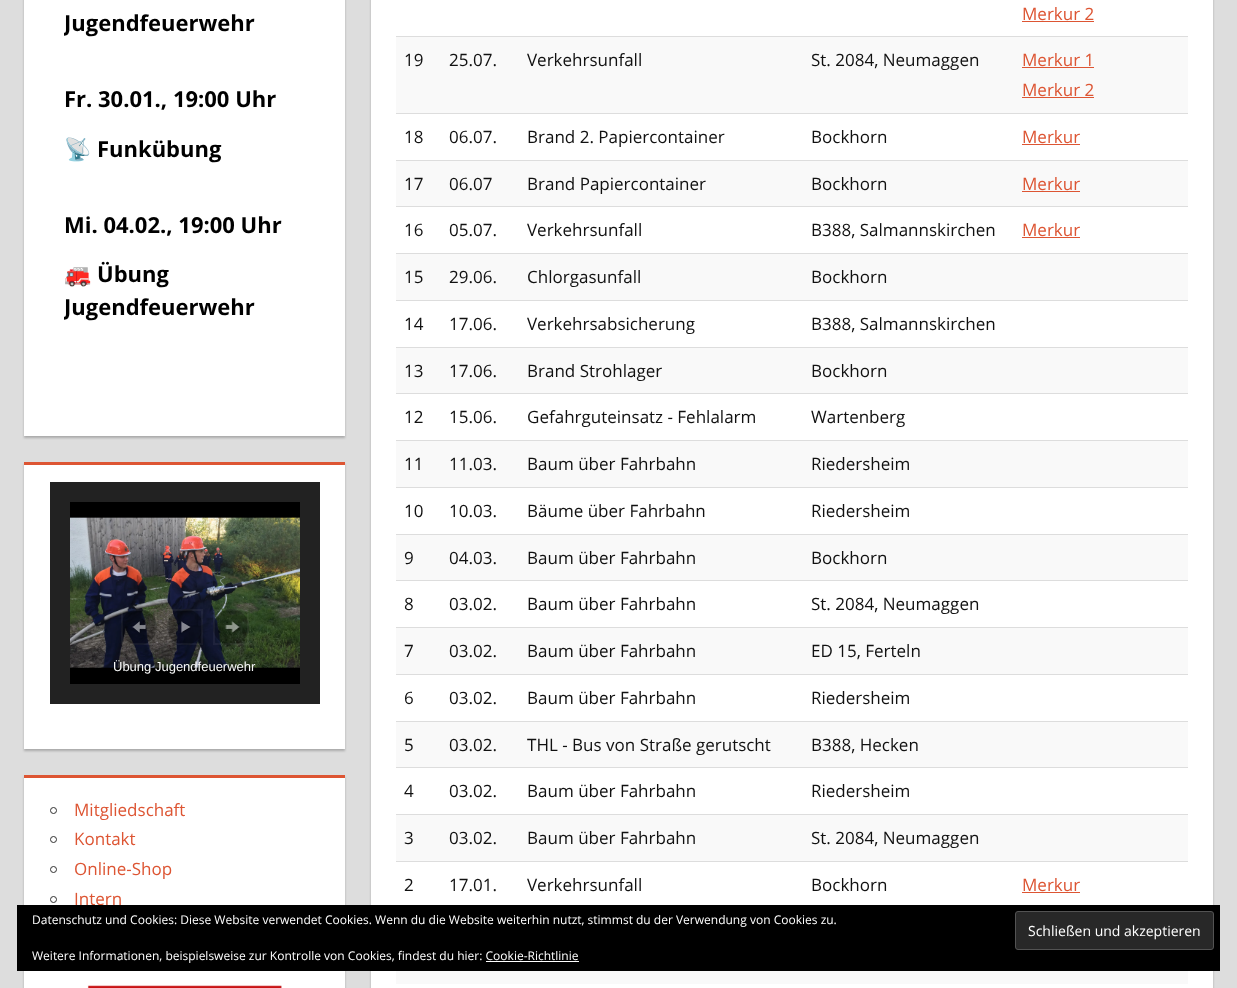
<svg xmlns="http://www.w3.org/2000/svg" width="1237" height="988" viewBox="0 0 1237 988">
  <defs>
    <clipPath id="clip1"><path d="M64 0h242v56H64z"/></clipPath>
    <clipPath id="clip2"><path d="M64 66h242v115H64z"/></clipPath>
    <clipPath id="clip3"><path d="M64 191h242v149H64z"/></clipPath>
  </defs>
  <rect width="100%" height="100%" fill="#ddd"/>
  <path d="M24 -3h321v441H24z" fill="#aaa" filter="blur(1px)"/>
  <path d="M24 0h321v436H24z" fill="#fff"/>
  <path d="M24 464h321v287H24z" fill="#aaa" filter="blur(1px)"/>
  <path d="M24 465h321v284H24z" fill="#fff"/>
  <path d="M24 462h321v3H24z" fill="#d53"/>
  <path d="M60 492h250v202H60z" fill="none" stroke="#222" stroke-width="20"/>
  <path d="M70 502h230v182H70z" fill="#000"/>
  <image x="70" y="517" width="230" height="151" href="img/4.png"/>
  <circle cx="139" cy="627" r="18" fill="#0000004d"/>
  <image x="132" y="621" width="15" height="12" href="img/1.png"/>
  <path d="M122 610h34v34H122z" fill="none" stroke="#ffffff0d" stroke-width="2"/>
  <circle cx="185" cy="627" r="18" fill="#0000004d"/>
  <image x="181" y="621" width="10" height="12" href="img/2.png"/>
  <path d="M168 610h34v34H168z" fill="none" stroke="#ffffff0d" stroke-width="2"/>
  <circle cx="231" cy="627" r="18" fill="#0000004d"/>
  <image x="225" y="621" width="15" height="12" href="img/3.png"/>
  <path d="M214 610h34v34H214z" fill="none" stroke="#ffffff0d" stroke-width="2"/>
  <path d="M24 777h321v164H24z" fill="#aaa" filter="blur(1px)"/>
  <path d="M24 778h321v127H24z" fill="#fff"/>
  <path d="M24 775h321v3H24z" fill="#d53"/>
  <circle cx="53.5" cy="810.5" r="3" fill="none" stroke="#303030"/>
  <circle cx="53.5" cy="839.5" r="3" fill="none" stroke="#303030"/>
  <circle cx="53.5" cy="869.5" r="3" fill="none" stroke="#303030"/>
  <circle cx="53.5" cy="899.5" r="3" fill="none" stroke="#303030"/>
  <path d="M24 967h321v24H24z" fill="#aaa" filter="blur(1px)"/>
  <path d="M24 971h321v17H24z" fill="#fff"/>
  <image x="87" y="985" width="195" height="3" href="img/5.png"/>
  <path d="M371 -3h842v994H371z" fill="#aaa" filter="blur(1px)"/>
  <path d="M371 0h842v988H371z" fill="#fff"/>
  <path d="M1022 21h72v1H1022z" fill="#d53"/>
  <path d="M396 37h792v76H396z" fill="#f9f9f9"/>
  <path d="M396 36h792v1H396z" fill="#ddd"/>
  <path d="M1022 67h72v1H1022z" fill="#d53"/>
  <path d="M1022 97h72v1H1022z" fill="#d53"/>
  <path d="M396 113h792v1H396z" fill="#ddd"/>
  <path d="M1022 144h58v1H1022z" fill="#d53"/>
  <path d="M396 161h792v45H396z" fill="#f9f9f9"/>
  <path d="M396 160h792v1H396z" fill="#ddd"/>
  <path d="M1022 191h58v1H1022z" fill="#d53"/>
  <path d="M396 206h792v1H396z" fill="#ddd"/>
  <path d="M1022 237h58v1H1022z" fill="#d53"/>
  <path d="M396 253h792v1H396z" fill="#ddd"/>
  <path d="M396 254h792v46H396z" fill="#f9f9f9"/>
  <path d="M396 300h792v1H396z" fill="#ddd"/>
  <path d="M396 347h792v1H396z" fill="#ddd"/>
  <path d="M396 348h792v45H396z" fill="#f9f9f9"/>
  <path d="M396 393h792v1H396z" fill="#ddd"/>
  <path d="M396 440h792v1H396z" fill="#ddd"/>
  <path d="M396 441h792v46H396z" fill="#f9f9f9"/>
  <path d="M396 487h792v1H396z" fill="#ddd"/>
  <path d="M396 534h792v1H396z" fill="#ddd"/>
  <path d="M396 535h792v45H396z" fill="#f9f9f9"/>
  <path d="M396 580h792v1H396z" fill="#ddd"/>
  <path d="M396 627h792v1H396z" fill="#ddd"/>
  <path d="M396 628h792v46H396z" fill="#f9f9f9"/>
  <path d="M396 674h792v1H396z" fill="#ddd"/>
  <path d="M396 721h792v1H396z" fill="#ddd"/>
  <path d="M396 722h792v45H396z" fill="#f9f9f9"/>
  <path d="M396 767h792v1H396z" fill="#ddd"/>
  <path d="M396 814h792v1H396z" fill="#ddd"/>
  <path d="M396 815h792v46H396z" fill="#f9f9f9"/>
  <path d="M396 861h792v1H396z" fill="#ddd"/>
  <path d="M1022 892h58v1H1022z" fill="#d53"/>
  <path d="M396 971h792v13H396z" fill="#f9f9f9"/>
  <g clip-path="url(#clip1)">
    <text x="64" y="31" font-family="Open Sans" font-size="22" font-weight="bold" fill="#000">Jugendfeuerwehr</text>
  </g>
  <text x="64" y="107" font-family="Open Sans" font-size="22" font-weight="bold" fill="#000">Fr. 30.01., 19:00 Uhr</text>
  <g clip-path="url(#clip2)">
    <text x="64" y="157" font-family="Noto Color Emoji" font-size="22" font-weight="bold" fill="#000">📡</text>
  </g>
  <g font-family="Open Sans" font-size="22" font-weight="bold" fill="#000">
    <text x="97" y="157">Funkübung</text>
    <text x="64" y="233">Mi. 04.02., 19:00 Uhr</text>
  </g>
  <g clip-path="url(#clip3)">
    <text x="64" y="282" font-family="Noto Color Emoji" font-size="22" font-weight="bold" fill="#000">🚒</text>
  </g>
  <text x="97" y="282" font-family="Open Sans" font-size="22" font-weight="bold" fill="#000">Übung</text>
  <g clip-path="url(#clip3)">
    <text x="64" y="315" font-family="Open Sans" font-size="22" font-weight="bold" fill="#000">Jugendfeuerwehr</text>
  </g>
  <text x="113" y="671" font-family="Liberation Sans" font-size="13" fill="#f6f7f7">Übung Jugendfeuerwehr</text>
  <g font-family="Open Sans" font-size="17" fill="#d53">
    <text x="74" y="816">Mitgliedschaft</text>
    <text x="74" y="845">Kontakt</text>
    <text x="74" y="875">Online-Shop</text>
    <text x="74" y="905">Intern</text>
    <text x="1022" y="20">Merkur 2</text>
  </g>
  <g font-family="Open Sans" font-size="17" fill="#111">
    <text x="404" y="66">19</text>
    <text x="449" y="66">25.07.</text>
    <text x="527" y="66">Verkehrsunfall</text>
    <text x="811" y="66">St. 2084, Neumaggen</text>
  </g>
  <g font-family="Open Sans" font-size="17" fill="#d53">
    <text x="1022" y="66">Merkur 1</text>
    <text x="1022" y="96">Merkur 2</text>
  </g>
  <g font-family="Open Sans" font-size="17" fill="#111">
    <text x="404" y="143">18</text>
    <text x="449" y="143">06.07.</text>
    <text x="527" y="143">Brand 2. Papiercontainer</text>
    <text x="811" y="143">Bockhorn</text>
  </g>
  <text x="1022" y="143" font-family="Open Sans" font-size="17" fill="#d53">Merkur</text>
  <g font-family="Open Sans" font-size="17" fill="#111">
    <text x="404" y="190">17</text>
    <text x="449" y="190">06.07</text>
    <text x="527" y="190">Brand Papiercontainer</text>
    <text x="811" y="190">Bockhorn</text>
  </g>
  <text x="1022" y="190" font-family="Open Sans" font-size="17" fill="#d53">Merkur</text>
  <g font-family="Open Sans" font-size="17" fill="#111">
    <text x="404" y="236">16</text>
    <text x="449" y="236">05.07.</text>
    <text x="527" y="236">Verkehrsunfall</text>
    <text x="811" y="236">B388, Salmannskirchen</text>
  </g>
  <text x="1022" y="236" font-family="Open Sans" font-size="17" fill="#d53">Merkur</text>
  <g font-family="Open Sans" font-size="17" fill="#111">
    <text x="404" y="283">15</text>
    <text x="449" y="283">29.06.</text>
    <text x="527" y="283">Chlorgasunfall</text>
    <text x="811" y="283">Bockhorn</text>
    <text x="404" y="330">14</text>
    <text x="449" y="330">17.06.</text>
    <text x="527" y="330">Verkehrsabsicherung</text>
    <text x="811" y="330">B388, Salmannskirchen</text>
    <text x="404" y="377">13</text>
    <text x="449" y="377">17.06.</text>
    <text x="527" y="377">Brand Strohlager</text>
    <text x="811" y="377">Bockhorn</text>
    <text x="404" y="423">12</text>
    <text x="449" y="423">15.06.</text>
    <text x="527" y="423">Gefahrguteinsatz - Fehlalarm</text>
    <text x="811" y="423">Wartenberg</text>
    <text x="404" y="470">11</text>
    <text x="449" y="470">11.03.</text>
    <text x="527" y="470">Baum über Fahrbahn</text>
    <text x="811" y="470">Riedersheim</text>
    <text x="404" y="517">10</text>
    <text x="449" y="517">10.03.</text>
    <text x="527" y="517">Bäume über Fahrbahn</text>
    <text x="811" y="517">Riedersheim</text>
    <text x="404" y="564">9</text>
    <text x="449" y="564">04.03.</text>
    <text x="527" y="564">Baum über Fahrbahn</text>
    <text x="811" y="564">Bockhorn</text>
    <text x="404" y="610">8</text>
    <text x="449" y="610">03.02.</text>
    <text x="527" y="610">Baum über Fahrbahn</text>
    <text x="811" y="610">St. 2084, Neumaggen</text>
    <text x="404" y="657">7</text>
    <text x="449" y="657">03.02.</text>
    <text x="527" y="657">Baum über Fahrbahn</text>
    <text x="811" y="657">ED 15, Ferteln</text>
    <text x="404" y="704">6</text>
    <text x="449" y="704">03.02.</text>
    <text x="527" y="704">Baum über Fahrbahn</text>
    <text x="811" y="704">Riedersheim</text>
    <text x="404" y="751">5</text>
    <text x="449" y="751">03.02.</text>
    <text x="527" y="751">THL - Bus von Straße gerutscht</text>
    <text x="811" y="751">B388, Hecken</text>
    <text x="404" y="797">4</text>
    <text x="449" y="797">03.02.</text>
    <text x="527" y="797">Baum über Fahrbahn</text>
    <text x="811" y="797">Riedersheim</text>
    <text x="404" y="844">3</text>
    <text x="449" y="844">03.02.</text>
    <text x="527" y="844">Baum über Fahrbahn</text>
    <text x="811" y="844">St. 2084, Neumaggen</text>
    <text x="404" y="891">2</text>
    <text x="449" y="891">17.01.</text>
    <text x="527" y="891">Verkehrsunfall</text>
    <text x="811" y="891">Bockhorn</text>
  </g>
  <text x="1022" y="891" font-family="Open Sans" font-size="17" fill="#d53">Merkur</text>
  <path d="M17 905h1203v66H17z" fill="#000"/>
  <text x="32" y="924" font-family="Open Sans" font-size="12" fill="#fff">Datenschutz und Cookies: Diese Website verwendet Cookies. Wenn du die Website weiterhin nutzt, stimmst du der Verwendung von Cookies zu.</text>
  <rect x="1015.5" y="911.5" width="198" height="38" rx="2.5" fill="#282828" stroke="#535353"/>
  <text x="1028" y="936" font-family="Open Sans" font-size="14" fill="#fff">Schließen und akzeptieren</text>
  <text x="32" y="960" font-family="Open Sans" font-size="12" fill="#fff">Weitere Informationen, beispielsweise zur Kontrolle von Cookies, findest du hier: Cookie-Richtlinie</text>
  <path d="M486 961h93v1H486z" fill="#fff"/>
</svg>
